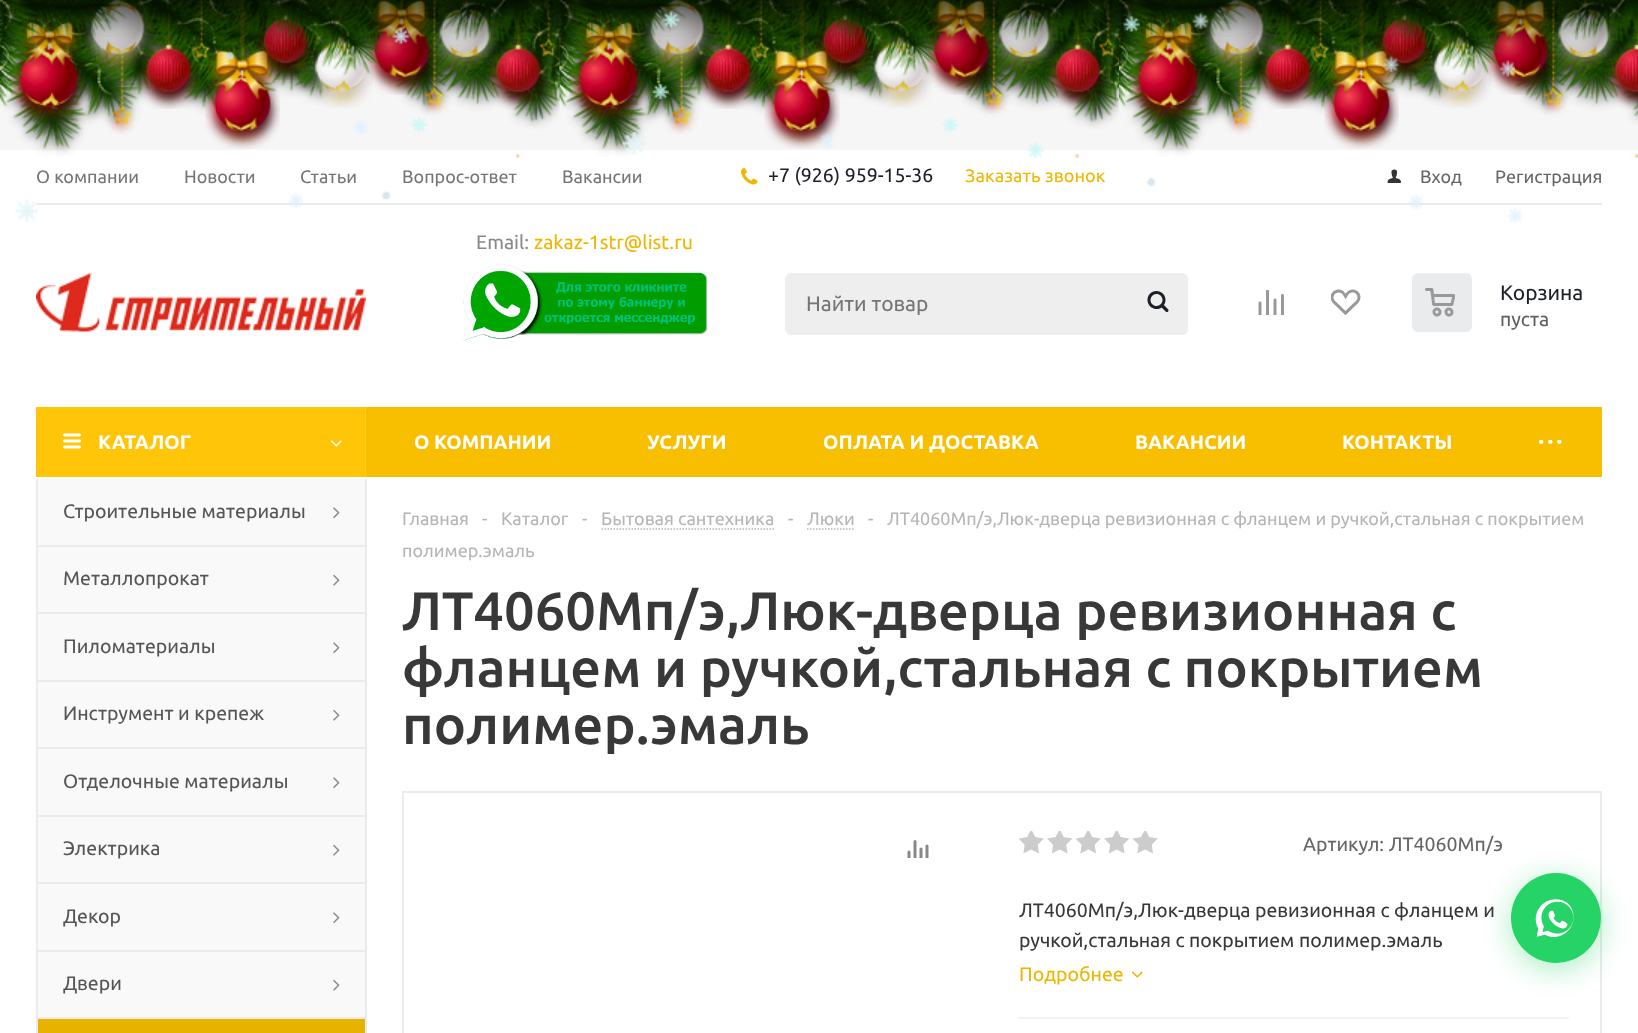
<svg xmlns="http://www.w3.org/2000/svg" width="1638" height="1033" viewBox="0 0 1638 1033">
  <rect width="100%" height="100%" fill="#f6f6f7"/>
  <path d="M0 150h1638v883H0z" fill="#fff"/>
  <image x="0" y="0" width="1638" height="158" href="img/15.png"/>
  <image x="10" y="0" width="77" height="123" href="img/17.png"/>
  <image x="0" y="0" width="38" height="107" href="img/16.png"/>
  <image x="81" y="0" width="73" height="70" href="img/19.png"/>
  <image x="37" y="0" width="92" height="40" href="img/18.png"/>
  <image x="205" y="0" width="75" height="149" href="img/20.png"/>
  <image x="255" y="0" width="61" height="80" href="img/21.png"/>
  <image x="306" y="11" width="67" height="97" href="img/26.png"/>
  <image x="265" y="0" width="43" height="46" href="img/22.png"/>
  <image x="365" y="0" width="73" height="95" href="img/24.png"/>
  <image x="307" y="0" width="75" height="74" href="img/23.png"/>
  <image x="431" y="0" width="69" height="73" href="img/25.png"/>
  <image x="487" y="15" width="63" height="95" href="img/30.png"/>
  <image x="433" y="0" width="118" height="42" href="img/27.png"/>
  <image x="550" y="0" width="10" height="104" href="img/28.png"/>
  <image x="138" y="20" width="61" height="89" href="img/29.png"/>
  <image x="569" y="0" width="78" height="123" href="img/32.png"/>
  <image x="559" y="0" width="38" height="107" href="img/31.png"/>
  <image x="640" y="0" width="74" height="70" href="img/34.png"/>
  <image x="597" y="0" width="91" height="40" href="img/33.png"/>
  <image x="764" y="0" width="76" height="149" href="img/35.png"/>
  <image x="814" y="0" width="61" height="80" href="img/36.png"/>
  <image x="866" y="11" width="67" height="97" href="img/42.png"/>
  <image x="825" y="0" width="42" height="46" href="img/37.png"/>
  <image x="925" y="0" width="73" height="95" href="img/39.png"/>
  <image x="867" y="0" width="74" height="74" href="img/38.png"/>
  <image x="990" y="0" width="69" height="73" href="img/40.png"/>
  <image x="697" y="15" width="62" height="94" href="img/41.png"/>
  <image x="1047" y="15" width="62" height="95" href="img/45.png"/>
  <image x="993" y="0" width="117" height="42" href="img/43.png"/>
  <image x="1110" y="0" width="9" height="104" href="img/44.png"/>
  <image x="1129" y="0" width="77" height="123" href="img/47.png"/>
  <image x="1119" y="0" width="38" height="107" href="img/46.png"/>
  <image x="1200" y="0" width="73" height="70" href="img/49.png"/>
  <image x="1156" y="0" width="92" height="40" href="img/48.png"/>
  <image x="1324" y="0" width="75" height="149" href="img/50.png"/>
  <image x="1374" y="0" width="61" height="80" href="img/51.png"/>
  <image x="1425" y="11" width="67" height="97" href="img/56.png"/>
  <image x="1384" y="0" width="43" height="46" href="img/52.png"/>
  <image x="1484" y="0" width="73" height="95" href="img/54.png"/>
  <image x="1426" y="0" width="75" height="74" href="img/53.png"/>
  <image x="1550" y="0" width="69" height="73" href="img/55.png"/>
  <image x="1606" y="15" width="32" height="95" href="img/59.png"/>
  <image x="1552" y="0" width="86" height="42" href="img/57.png"/>
  <image x="1257" y="20" width="61" height="89" href="img/58.png"/>
  <path d="M0 -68h1638v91H0z" fill="#000000bf" filter="blur(22.5px)"/>
  <image x="0" y="0" width="1638" height="158" href="img/60.png"/>
  <image x="10" y="0" width="77" height="123" href="img/62.png"/>
  <image x="0" y="0" width="38" height="107" href="img/61.png"/>
  <image x="81" y="0" width="73" height="71" href="img/64.png"/>
  <image x="37" y="0" width="92" height="40" href="img/63.png"/>
  <image x="205" y="0" width="75" height="149" href="img/65.png"/>
  <image x="255" y="0" width="60" height="80" href="img/66.png"/>
  <image x="306" y="9" width="67" height="99" href="img/72.png"/>
  <image x="265" y="0" width="43" height="46" href="img/67.png"/>
  <image x="365" y="0" width="73" height="95" href="img/69.png"/>
  <image x="307" y="0" width="76" height="75" href="img/68.png"/>
  <image x="431" y="0" width="69" height="74" href="img/70.png"/>
  <image x="138" y="13" width="61" height="96" href="img/71.png"/>
  <image x="488" y="15" width="60" height="95" href="img/75.png"/>
  <image x="433" y="0" width="118" height="42" href="img/73.png"/>
  <image x="550" y="0" width="10" height="104" href="img/74.png"/>
  <image x="569" y="0" width="77" height="123" href="img/77.png"/>
  <image x="559" y="0" width="38" height="107" href="img/76.png"/>
  <image x="640" y="0" width="74" height="71" href="img/79.png"/>
  <image x="597" y="0" width="91" height="40" href="img/78.png"/>
  <image x="764" y="0" width="76" height="149" href="img/80.png"/>
  <image x="814" y="0" width="61" height="80" href="img/81.png"/>
  <image x="866" y="9" width="66" height="99" href="img/87.png"/>
  <image x="825" y="0" width="42" height="46" href="img/82.png"/>
  <image x="925" y="0" width="72" height="95" href="img/84.png"/>
  <image x="867" y="0" width="75" height="75" href="img/83.png"/>
  <image x="990" y="0" width="69" height="74" href="img/85.png"/>
  <image x="698" y="13" width="60" height="96" href="img/86.png"/>
  <image x="1047" y="15" width="61" height="95" href="img/90.png"/>
  <image x="993" y="0" width="117" height="42" href="img/88.png"/>
  <image x="1110" y="0" width="9" height="104" href="img/89.png"/>
  <image x="1129" y="0" width="77" height="123" href="img/92.png"/>
  <image x="1119" y="0" width="38" height="107" href="img/91.png"/>
  <image x="1200" y="0" width="73" height="71" href="img/94.png"/>
  <image x="1156" y="0" width="92" height="40" href="img/93.png"/>
  <image x="1324" y="0" width="75" height="149" href="img/95.png"/>
  <image x="1374" y="0" width="60" height="80" href="img/96.png"/>
  <image x="1425" y="9" width="67" height="99" href="img/102.png"/>
  <image x="1384" y="0" width="43" height="46" href="img/97.png"/>
  <image x="1484" y="0" width="73" height="95" href="img/99.png"/>
  <image x="1426" y="0" width="76" height="75" href="img/98.png"/>
  <image x="1550" y="0" width="69" height="74" href="img/100.png"/>
  <image x="1257" y="13" width="61" height="96" href="img/101.png"/>
  <image x="1607" y="15" width="31" height="95" href="img/104.png"/>
  <image x="1552" y="0" width="86" height="42" href="img/103.png"/>
  <path d="M0 -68h1638v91H0z" fill="#000000bf" filter="blur(22.5px)"/>
  <image x="662" y="11" width="18" height="17" href="img/1.png"/>
  <image x="1123" y="16" width="17" height="16" href="img/2.png"/>
  <image x="1192" y="12" width="18" height="17" href="img/3.png"/>
  <image x="392" y="28" width="18" height="16" href="img/4.png"/>
  <image x="225" y="50" width="11" height="11" href="img/5.png"/>
  <image x="1382" y="55" width="18" height="18" href="img/6.png"/>
  <image x="1499" y="60" width="16" height="17" href="img/7.png"/>
  <image x="652" y="83" width="17" height="17" href="img/8.png"/>
  <image x="353" y="120" width="15" height="15" href="img/9.png"/>
  <image x="411" y="117" width="17" height="16" href="img/10.png"/>
  <image x="942" y="117" width="17" height="16" href="img/11.png"/>
  <image x="622" y="132" width="23" height="23" href="img/12.png"/>
  <image x="819" y="133" width="16" height="16" href="img/13.png"/>
  <image x="1027" y="142" width="17" height="16" href="img/14.png"/>
  <image x="741" y="168" width="17" height="17" href="img/105.png"/>
  <image x="1387" y="169" width="14" height="14" href="img/106.png"/>
  <path d="M36 203h1566v2H36z" fill="#eaebec"/>
  <image x="462" y="264" width="246" height="77" href="img/107.png"/>
  <image x="36" y="272" width="330" height="61" href="img/108.png"/>
  <rect x="785" y="273" width="403" height="62" rx="6" fill="#eee"/>
  <image x="1147" y="291" width="22" height="21" href="img/109.png"/>
  <image x="1258" y="290" width="26" height="25" href="img/110.png"/>
  <image x="1331" y="289" width="30" height="26" href="img/111.png"/>
  <rect x="1412" y="273" width="60" height="59" rx="6" fill="#eaebec"/>
  <image x="1425" y="288" width="30" height="29" href="img/112.png"/>
  <path d="M366 407h1236v70H366z" fill="#f8be00"/>
  <path d="M36 407h329v70H36z" fill="#ffc508"/>
  <path d="M365 407h1v70H365z" fill="#ffcb21"/>
  <image x="63" y="433" width="18" height="16" href="img/113.png"/>
  <image x="330" y="440" width="12" height="7" href="img/114.png"/>
  <image x="1539" y="440" width="23" height="4" href="img/115.png"/>
  <path d="M38 479h327v66H38z" fill="#f9f9f9"/>
  <path d="M365 479h2v66H365z" fill="#eaebec"/>
  <path d="M36 479h2v66H36z" fill="#eaebec"/>
  <image x="333" y="507" width="7" height="11" href="img/116.png"/>
  <path d="M38 547h327v65H38z" fill="#f9f9f9"/>
  <path d="M36 545h330v2H36z" fill="#eaebec"/>
  <path d="M365 545h2v67H365z" fill="#eaebec"/>
  <path d="M36 545h2v67H36z" fill="#eaebec"/>
  <image x="333" y="574" width="7" height="12" href="img/117.png"/>
  <path d="M38 614h327v66H38z" fill="#f9f9f9"/>
  <path d="M36 612h330v2H36z" fill="#eaebec"/>
  <path d="M365 612h2v68H365z" fill="#eaebec"/>
  <path d="M36 612h2v68H36z" fill="#eaebec"/>
  <image x="333" y="642" width="7" height="11" href="img/116.png"/>
  <path d="M38 682h327v65H38z" fill="#f9f9f9"/>
  <path d="M36 680h330v2H36z" fill="#eaebec"/>
  <path d="M365 680h2v67H365z" fill="#eaebec"/>
  <path d="M36 680h2v67H36z" fill="#eaebec"/>
  <image x="333" y="709" width="7" height="12" href="img/117.png"/>
  <path d="M38 749h327v66H38z" fill="#f9f9f9"/>
  <path d="M36 747h330v2H36z" fill="#eaebec"/>
  <path d="M365 747h2v68H365z" fill="#eaebec"/>
  <path d="M36 747h2v68H36z" fill="#eaebec"/>
  <image x="333" y="777" width="7" height="11" href="img/116.png"/>
  <path d="M38 817h327v65H38z" fill="#f9f9f9"/>
  <path d="M36 815h330v2H36z" fill="#eaebec"/>
  <path d="M365 815h2v67H365z" fill="#eaebec"/>
  <path d="M36 815h2v67H36z" fill="#eaebec"/>
  <image x="333" y="844" width="7" height="12" href="img/117.png"/>
  <path d="M38 884h327v66H38z" fill="#f9f9f9"/>
  <path d="M36 882h330v2H36z" fill="#eaebec"/>
  <path d="M365 882h2v68H365z" fill="#eaebec"/>
  <path d="M36 882h2v68H36z" fill="#eaebec"/>
  <image x="333" y="912" width="7" height="11" href="img/116.png"/>
  <path d="M38 952h327v65H38z" fill="#f9f9f9"/>
  <path d="M36 950h330v2H36z" fill="#eaebec"/>
  <path d="M365 950h2v67H365z" fill="#eaebec"/>
  <path d="M36 950h2v67H36z" fill="#eaebec"/>
  <image x="333" y="979" width="7" height="12" href="img/117.png"/>
  <path d="M38 1019h327v14H38z" fill="#e8b200"/>
  <path d="M36 1017h330v2H36z" fill="#eaebec"/>
  <path d="M365 1017h2v16H365z" fill="#eaebec"/>
  <path d="M36 1017h2v16H36z" fill="#eaebec"/>
  <path d="M601.5 529H774" fill="none" stroke="#b4b4b4" stroke-width="1.5" stroke-dasharray="1.5 1.5"/>
  <path d="M807 529H855" fill="none" stroke="#b4b4b4" stroke-width="1.5" stroke-dasharray="1.5 1.5"/>
  <path d="M403 792h1198v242H403z" fill="none" stroke="#eaebec" stroke-width="2"/>
  <image x="907" y="840" width="22" height="18" href="img/118.png"/>
  <path d="M1019 1017h550v2H1019z" fill="#f2f2f2"/>
  <image x="1019" y="831" width="25" height="23" href="img/119.png"/>
  <image x="1047" y="831" width="25" height="23" href="img/120.png"/>
  <image x="1076" y="831" width="25" height="23" href="img/119.png"/>
  <image x="1104" y="831" width="25" height="23" href="img/120.png"/>
  <image x="1133" y="831" width="25" height="23" href="img/119.png"/>
  <image x="1131" y="971" width="12" height="7" href="img/121.png"/>
  <rect x="1511" y="879" width="90" height="90" rx="45" fill="#25d36666" filter="blur(15px)"/>
  <circle cx="1556" cy="918" r="45" fill="#25d366"/>
  <image x="1535" y="899" width="39" height="38" href="img/122.png"/>
  <image x="1146" y="177" width="10" height="10" href="img/123.png"/>
  <image x="15" y="199" width="23" height="23" href="img/124.png"/>
  <image x="288" y="192" width="15" height="17" href="img/125.png"/>
  <image x="381" y="190" width="10" height="10" href="img/126.png"/>
  <image x="1408" y="194" width="16" height="16" href="img/127.png"/>
  <image x="1507" y="207" width="16" height="17" href="img/128.png"/>
  <g font-family="Ubuntu" font-size="18" fill="#757575">
    <text x="36" y="183">О компании</text>
    <text x="184" y="183">Новости</text>
    <text x="300" y="183">Статьи</text>
    <text x="402" y="183">Вопрос-ответ</text>
    <text x="562" y="183">Вакансии</text>
  </g>
  <text x="768" y="182" font-family="Ubuntu" font-size="19.5" fill="#1d2029">+7 (926) 959-15-36</text>
  <text x="965" y="182" font-family="Ubuntu" font-size="18" letter-spacing="0.1" fill="#eeb600">Заказать звонок</text>
  <g font-family="Ubuntu" font-size="18" fill="#666">
    <text x="1420" y="183">Вход</text>
    <text x="1495" y="183">Регистрация</text>
  </g>
  <text x="476" y="249" font-family="Ubuntu" font-size="19.5" fill="#888">Email:</text>
  <text x="534" y="249" font-family="Ubuntu" font-size="19.5" fill="#eeb600">zakaz-1str@list.ru</text>
  <text x="806" y="311" font-family="Ubuntu" font-size="21" fill="#757575">Найти товар</text>
  <text x="1500" y="300" font-family="Ubuntu" font-size="21" fill="#1d2029">Корзина</text>
  <text x="1500" y="326" font-family="Ubuntu" font-size="19.5" fill="#5f5f5f">пуста</text>
  <g font-family="Ubuntu" font-size="19.5" font-weight="bold" fill="#fff">
    <text x="98" y="449">КАТАЛОГ</text>
    <text x="414" y="449">О КОМПАНИИ</text>
    <text x="647" y="449">УСЛУГИ</text>
    <text x="823" y="449">ОПЛАТА И ДОСТАВКА</text>
    <text x="1135" y="449">ВАКАНСИИ</text>
    <text x="1342" y="449">КОНТАКТЫ</text>
  </g>
  <g font-family="Ubuntu" font-size="19.5" fill="#555">
    <text x="63" y="518">Строительные материалы</text>
    <text x="63" y="585">Металлопрокат</text>
    <text x="63" y="653">Пиломатериалы</text>
    <text x="63" y="720">Инструмент и крепеж</text>
    <text x="63" y="788">Отделочные материалы</text>
    <text x="63" y="855">Электрика</text>
    <text x="63" y="923">Декор</text>
    <text x="63" y="990">Двери</text>
  </g>
  <g font-family="Ubuntu" font-size="18" fill="#b6b5b5">
    <text x="402" y="525">Главная</text>
    <text x="482" y="525">-</text>
    <text x="501" y="525">Каталог</text>
    <text x="582" y="525">-</text>
    <text x="601" y="525">Бытовая сантехника</text>
    <text x="788" y="525">-</text>
    <text x="807" y="525">Люки</text>
    <text x="868" y="525">-</text>
    <text x="887" y="525">ЛТ4060Мп/э,Люк-дверца ревизионная с фланцем и ручкой,стальная с покрытием</text>
    <text x="402" y="557">полимер.эмаль</text>
  </g>
  <g font-family="Ubuntu" font-size="54" font-weight="500" fill="#383838">
    <text x="402" y="630">ЛТ4060Мп/э,Люк-дверца ревизионная с</text>
    <text x="402" y="687">фланцем и ручкой,стальная с покрытием</text>
    <text x="402" y="744">полимер.эмаль</text>
  </g>
  <text x="1303" y="851" font-family="Ubuntu" font-size="19.5" fill="#666">Артикул: ЛТ4060Мп/э</text>
  <g font-family="Ubuntu" font-size="19.5" fill="#383838">
    <text x="1019" y="917">ЛТ4060Мп/э,Люк-дверца ревизионная с фланцем и</text>
    <text x="1019" y="947">ручкой,стальная с покрытием полимер.эмаль</text>
  </g>
  <text x="1019" y="981" font-family="Ubuntu" font-size="19.5" fill="#eeb600">Подробнее</text>
</svg>
